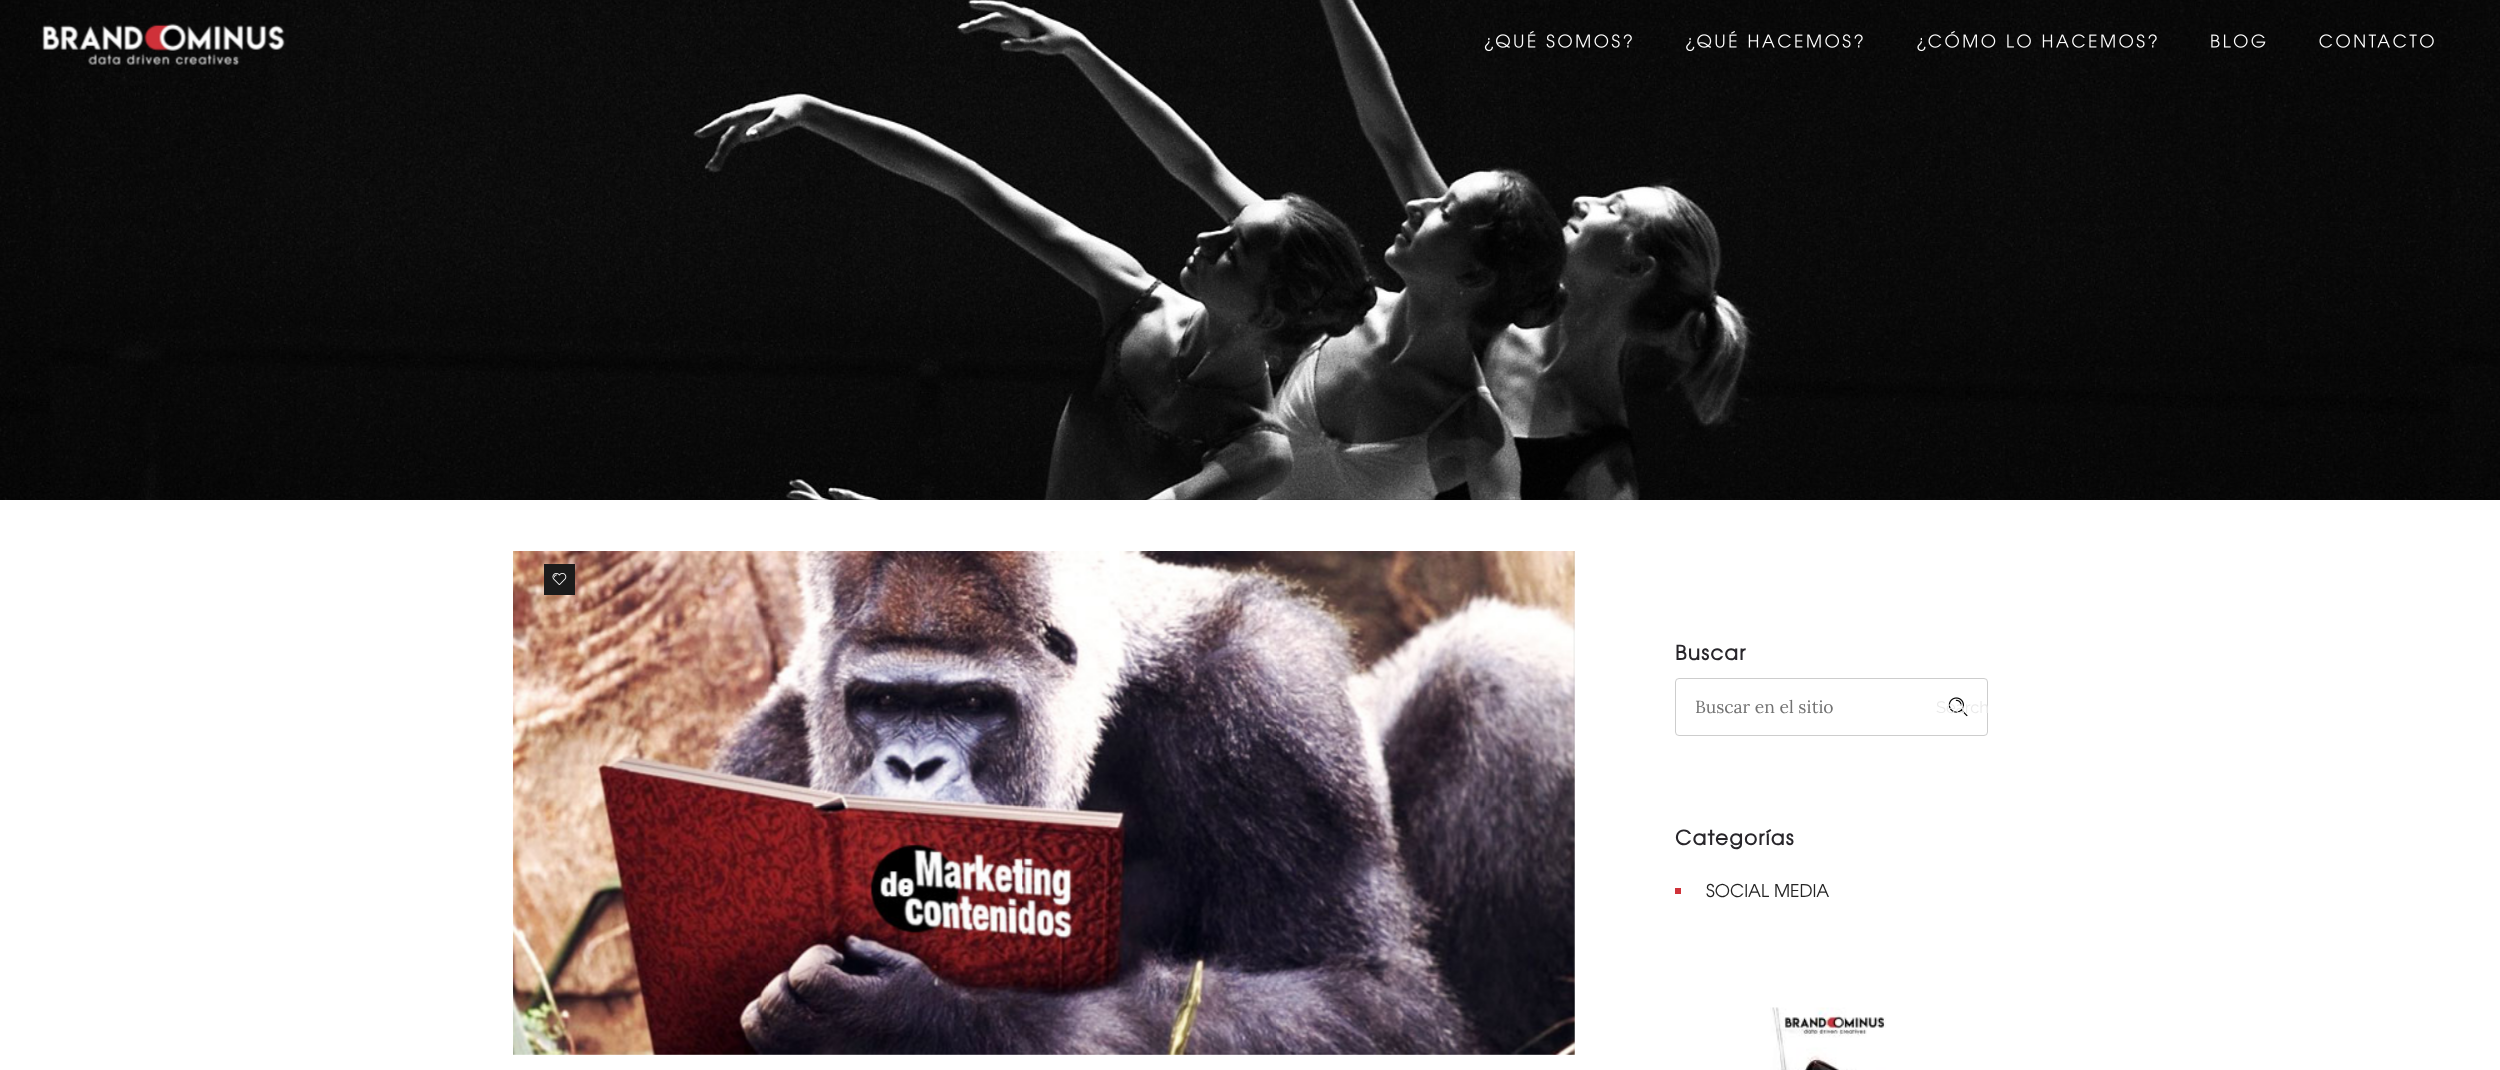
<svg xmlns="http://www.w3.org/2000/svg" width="2500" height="1070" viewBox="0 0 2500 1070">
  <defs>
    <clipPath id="clip1"><path d="M1929 678h59v58H1929z"/></clipPath>
  </defs>
  <rect width="100%" height="100%" fill="#fff"/>
  <image x="0" y="0" width="2500" height="500" href="img/7.png"/>
  <image x="42" y="23" width="243" height="42" href="img/1.png"/>
  <image x="1484" y="31" width="148" height="21" href="img/2.png"/>
  <image x="1686" y="31" width="177" height="21" href="img/3.png"/>
  <image x="1917" y="31" width="240" height="21" href="img/4.png"/>
  <image x="2211" y="34" width="55" height="14" href="img/5.png"/>
  <image x="2319" y="34" width="115" height="14" href="img/6.png"/>
  <path d="M812 499h822v1H812z" fill="#1b1b1b1a"/>
  <image x="513" y="551" width="1062" height="504" href="img/8.png"/>
  <path d="M544 564h31v31H544z" fill="#1b1b1b"/>
  <image x="552" y="573" width="15" height="12" href="img/9.png"/>
  <rect x="1675.5" y="678.5" width="312" height="57" rx="3.5" fill="none" stroke="#cdcdcd"/>
  <image x="1948" y="697" width="20" height="20" href="img/10.png"/>
  <path d="M1675 888h6v6H1675z" fill="#d0333a"/>
  <image x="1770" y="1007" width="116" height="63" href="img/11.png"/>
  <text x="1675" y="660" font-family="TeX Gyre Adventor" font-size="20" font-weight="bold" letter-spacing="1.25" fill="#28262b">Buscar</text>
  <text x="1695" y="713" font-family="Lora" font-size="17.5" fill="#727272">Buscar en el sitio</text>
  <g clip-path="url(#clip1)">
    <text x="1936" y="713" font-family="Raleway" font-size="16.5" fill="#eaeaea">Search</text>
  </g>
  <text x="1675" y="845" font-family="TeX Gyre Adventor" font-size="20" font-weight="bold" letter-spacing="1.25" fill="#28262b">Categorías</text>
  <text x="1706" y="897" font-family="TeX Gyre Adventor" font-size="17.5" fill="#242424">SOCIAL MEDIA</text>
</svg>
